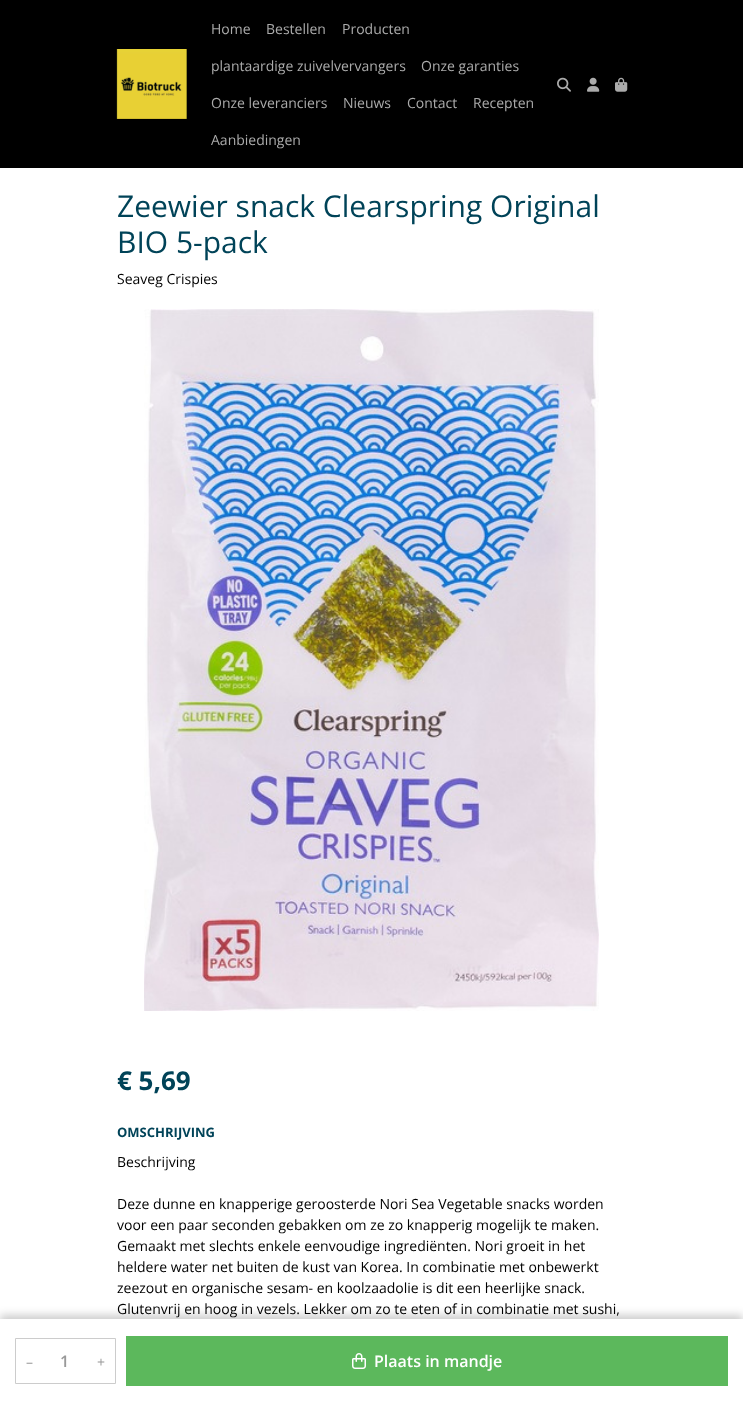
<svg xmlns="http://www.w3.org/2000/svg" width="743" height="1403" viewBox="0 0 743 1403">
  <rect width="100%" height="100%" fill="#fff"/>
  <path d="M0 0h743v168H0z" fill="#000"/>
  <image x="116" y="49" width="71" height="70" href="img/1.png"/>
  <image x="557" y="77" width="14" height="15" href="img/2.png"/>
  <image x="587" y="77" width="13" height="15" href="img/3.png"/>
  <image x="615" y="77" width="13" height="15" href="img/4.png"/>
  <path d="M0 1315h743v84H0z" fill="#00000033" filter="blur(4px)"/>
  <path d="M0 1319h743v84H0z" fill="#fff"/>
  <path d="M15.5 1338.5h100v45H15.5z" fill="none" stroke="#ccc"/>
  <path d="M126 1336h602v50H126z" fill="#5cb85c"/>
  <image x="352" y="1353" width="14" height="16" href="img/5.png"/>
  <image x="144" y="309" width="455" height="702" href="img/6.png"/>
  <g font-family="Open Sans" font-size="14" fill="#ababab">
    <text x="211" y="34">Home</text>
    <text x="266" y="34">Bestellen</text>
    <text x="342" y="34">Producten</text>
    <text x="211" y="71">plantaardige zuivelvervangers</text>
    <text x="421" y="71">Onze garanties</text>
    <text x="211" y="108">Onze leveranciers</text>
    <text x="343" y="108">Nieuws</text>
    <text x="407" y="108">Contact</text>
    <text x="473" y="108">Recepten</text>
    <text x="211" y="145">Aanbiedingen</text>
  </g>
  <g font-family="Open Sans" font-size="30" fill="#004358">
    <text x="117" y="217">Zeewier snack Clearspring Original</text>
    <text x="117" y="253">BIO 5-pack</text>
  </g>
  <text x="117" y="284" font-family="Open Sans" font-size="14" fill="#000">Seaveg Crispies</text>
  <text x="117" y="1090" font-family="Open Sans" font-size="26" font-weight="bold" fill="#004358">€ 5,69</text>
  <text x="26" y="1367" font-family="Open Sans" font-size="14" fill="#999">–</text>
  <text x="60" y="1367" font-family="Open Sans" font-size="16" font-weight="600" fill="#999">1</text>
  <text x="97" y="1367" font-family="Open Sans" font-size="14" fill="#999">+</text>
  <text x="374" y="1367" font-family="Open Sans" font-size="16" font-weight="600" fill="#fff">Plaats in mandje</text>
  <text x="117" y="1137" font-family="Open Sans" font-size="13" font-weight="bold" fill="#004358">OMSCHRIJVING</text>
  <g font-family="Open Sans" font-size="14" fill="#000">
    <text x="117" y="1167">Beschrijving</text>
    <text x="117" y="1209">Deze dunne en knapperige geroosterde Nori Sea Vegetable snacks worden</text>
    <text x="117" y="1230">voor een paar seconden gebakken om ze zo knapperig mogelijk te maken.</text>
    <text x="117" y="1251">Gemaakt met slechts enkele eenvoudige ingrediënten. Nori groeit in het</text>
    <text x="117" y="1272">heldere water net buiten de kust van Korea. In combinatie met onbewerkt</text>
    <text x="117" y="1293">zeezout en organische sesam- en koolzaadolie is dit een heerlijke snack.</text>
    <text x="117" y="1314">Glutenvrij en hoog in vezels. Lekker om zo te eten of in combinatie met sushi,</text>
  </g>
</svg>
